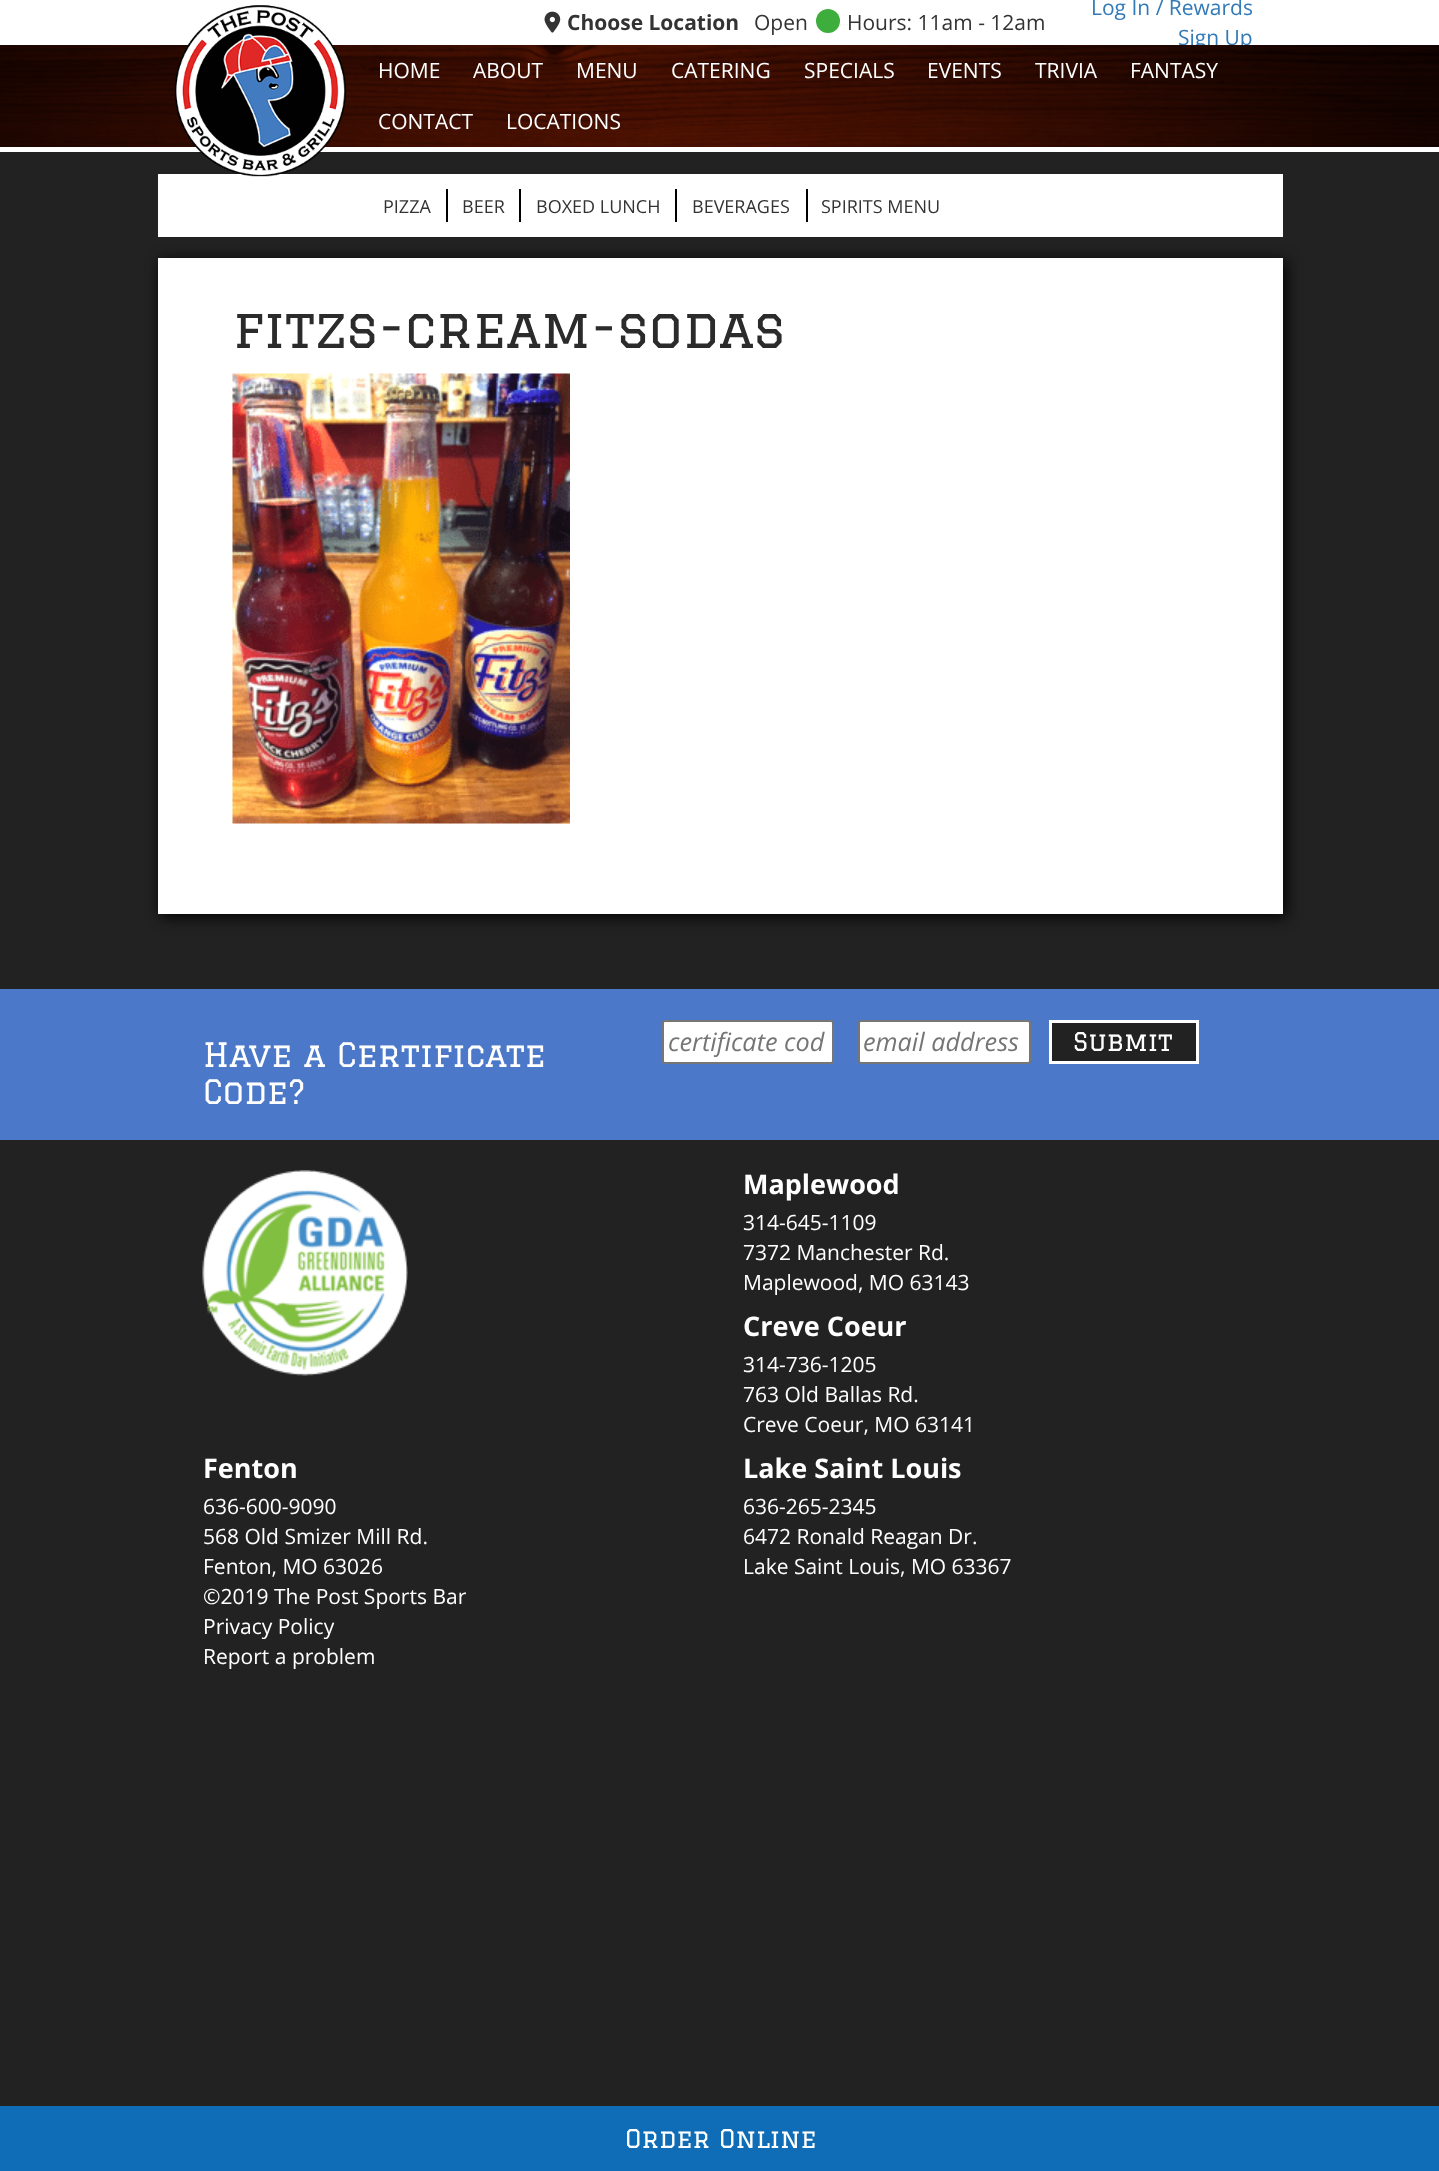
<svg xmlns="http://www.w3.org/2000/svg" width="1439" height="2171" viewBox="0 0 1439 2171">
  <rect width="100%" height="100%" fill="#222"/>
  <path d="M0 0h1439v45H0z" fill="#fff"/>
  <image x="544" y="11" width="17" height="22" href="img/1.png"/>
  <circle cx="828" cy="21" r="12" fill="#3dae3b"/>
  <path d="M0 147h1439v5H0z" fill="#fff"/>
  <path d="M158 174h1125v63H158z" fill="#fff"/>
  <path d="M446 189h2v33H446z" fill="#000"/>
  <path d="M519 189h2v33H519z" fill="#000"/>
  <path d="M675 189h2v33H675z" fill="#000"/>
  <path d="M806 189h2v33H806z" fill="#000"/>
  <path d="M161 261h1125v656H161z" fill="#000" filter="blur(7.5px)"/>
  <path d="M158 258h1125v656H158z" fill="#fff"/>
  <image x="232" y="373" width="338" height="451" href="img/4.png"/>
  <path d="M0 989h1439v151H0z" fill="#4b78c8"/>
  <rect x="663" y="1021" width="170" height="42" rx="2" fill="#fff" stroke="#767676" stroke-width="2"/>
  <rect x="859" y="1021" width="171" height="42" rx="2" fill="#fff" stroke="#767676" stroke-width="2"/>
  <path d="M1050.5 1021.5h147v41H1050.5z" fill="#222" stroke="#fff" stroke-width="3"/>
  <image x="202" y="1170" width="206" height="206" href="img/5.png"/>
  <path d="M0 2106h1439v65H0z" fill="#0f6cb6"/>
  <text x="567" y="30" font-family="Open Sans" font-size="21" font-weight="bold" fill="#333">Choose Location</text>
  <g font-family="Open Sans" font-size="21" fill="#333">
    <text x="754" y="30">Open</text>
    <text x="847" y="30">Hours: 11am - 12am</text>
  </g>
  <g font-family="Open Sans" font-size="21" fill="#337ab7">
    <text x="1091" y="15">Log In / Rewards</text>
    <text x="1178" y="45">Sign Up</text>
  </g>
  <image x="0" y="45" width="1439" height="102" href="img/2.png"/>
  <image x="174" y="5" width="172" height="172" href="img/3.png"/>
  <g font-family="Open Sans" font-size="21" fill="#fff">
    <text x="378" y="78">HOME</text>
    <text x="473" y="78">ABOUT</text>
    <text x="576" y="78">MENU</text>
    <text x="671" y="78">CATERING</text>
    <text x="804" y="78">SPECIALS</text>
    <text x="927" y="78">EVENTS</text>
    <text x="1035" y="78">TRIVIA</text>
    <text x="1130" y="78">FANTASY</text>
    <text x="378" y="129">CONTACT</text>
    <text x="506" y="129">LOCATIONS</text>
  </g>
  <g font-family="Open Sans" font-size="18" fill="#333">
    <text x="383" y="213">PIZZA</text>
    <text x="462" y="213">BEER</text>
    <text x="536" y="213">BOXED LUNCH</text>
    <text x="692" y="213">BEVERAGES</text>
    <text x="821" y="213">SPIRITS MENU</text>
  </g>
  <text x="233" y="348" font-family="Graduate" font-size="52.5" fill="#2b2b2b">fitzs-cream-sodas</text>
  <g font-family="Graduate" font-size="33" fill="#fff">
    <text x="203" y="1067">Have a Certificate</text>
    <text x="203" y="1104">Code?</text>
  </g>
  <g font-family="Open Sans" font-size="25.25" font-style="italic" fill="#757575">
    <text x="668" y="1051">certificate cod</text>
    <text x="863" y="1051">email address</text>
  </g>
  <text x="1073" y="1051" font-family="Graduate" font-size="25.25" fill="#fff">Submit</text>
  <text x="743" y="1194" font-family="Open Sans" font-size="27" font-weight="bold" fill="#fff">Maplewood</text>
  <g font-family="Open Sans" font-size="21" fill="#fff">
    <text x="743" y="1230">314-645-1109</text>
    <text x="743" y="1260">7372 Manchester Rd.</text>
    <text x="743" y="1290">Maplewood, MO 63143</text>
  </g>
  <text x="743" y="1336" font-family="Open Sans" font-size="27" font-weight="bold" fill="#fff">Creve Coeur</text>
  <g font-family="Open Sans" font-size="21" fill="#fff">
    <text x="743" y="1372">314-736-1205</text>
    <text x="743" y="1402">763 Old Ballas Rd.</text>
    <text x="743" y="1432">Creve Coeur, MO 63141</text>
  </g>
  <text x="203" y="1478" font-family="Open Sans" font-size="27" font-weight="bold" fill="#fff">Fenton</text>
  <g font-family="Open Sans" font-size="21" fill="#fff">
    <text x="203" y="1514">636-600-9090</text>
    <text x="203" y="1544">568 Old Smizer Mill Rd.</text>
    <text x="203" y="1574">Fenton, MO 63026</text>
  </g>
  <text x="743" y="1478" font-family="Open Sans" font-size="27" font-weight="bold" fill="#fff">Lake Saint Louis</text>
  <g font-family="Open Sans" font-size="21" fill="#fff">
    <text x="743" y="1514">636-265-2345</text>
    <text x="743" y="1544">6472 Ronald Reagan Dr.</text>
    <text x="743" y="1574">Lake Saint Louis, MO 63367</text>
    <text x="203" y="1604">©2019 The Post Sports Bar</text>
    <text x="203" y="1634">Privacy Policy</text>
    <text x="203" y="1664">Report a problem</text>
  </g>
  <text x="625" y="2148" font-family="Graduate" font-size="25.25" fill="#fff">Order Online</text>
</svg>
